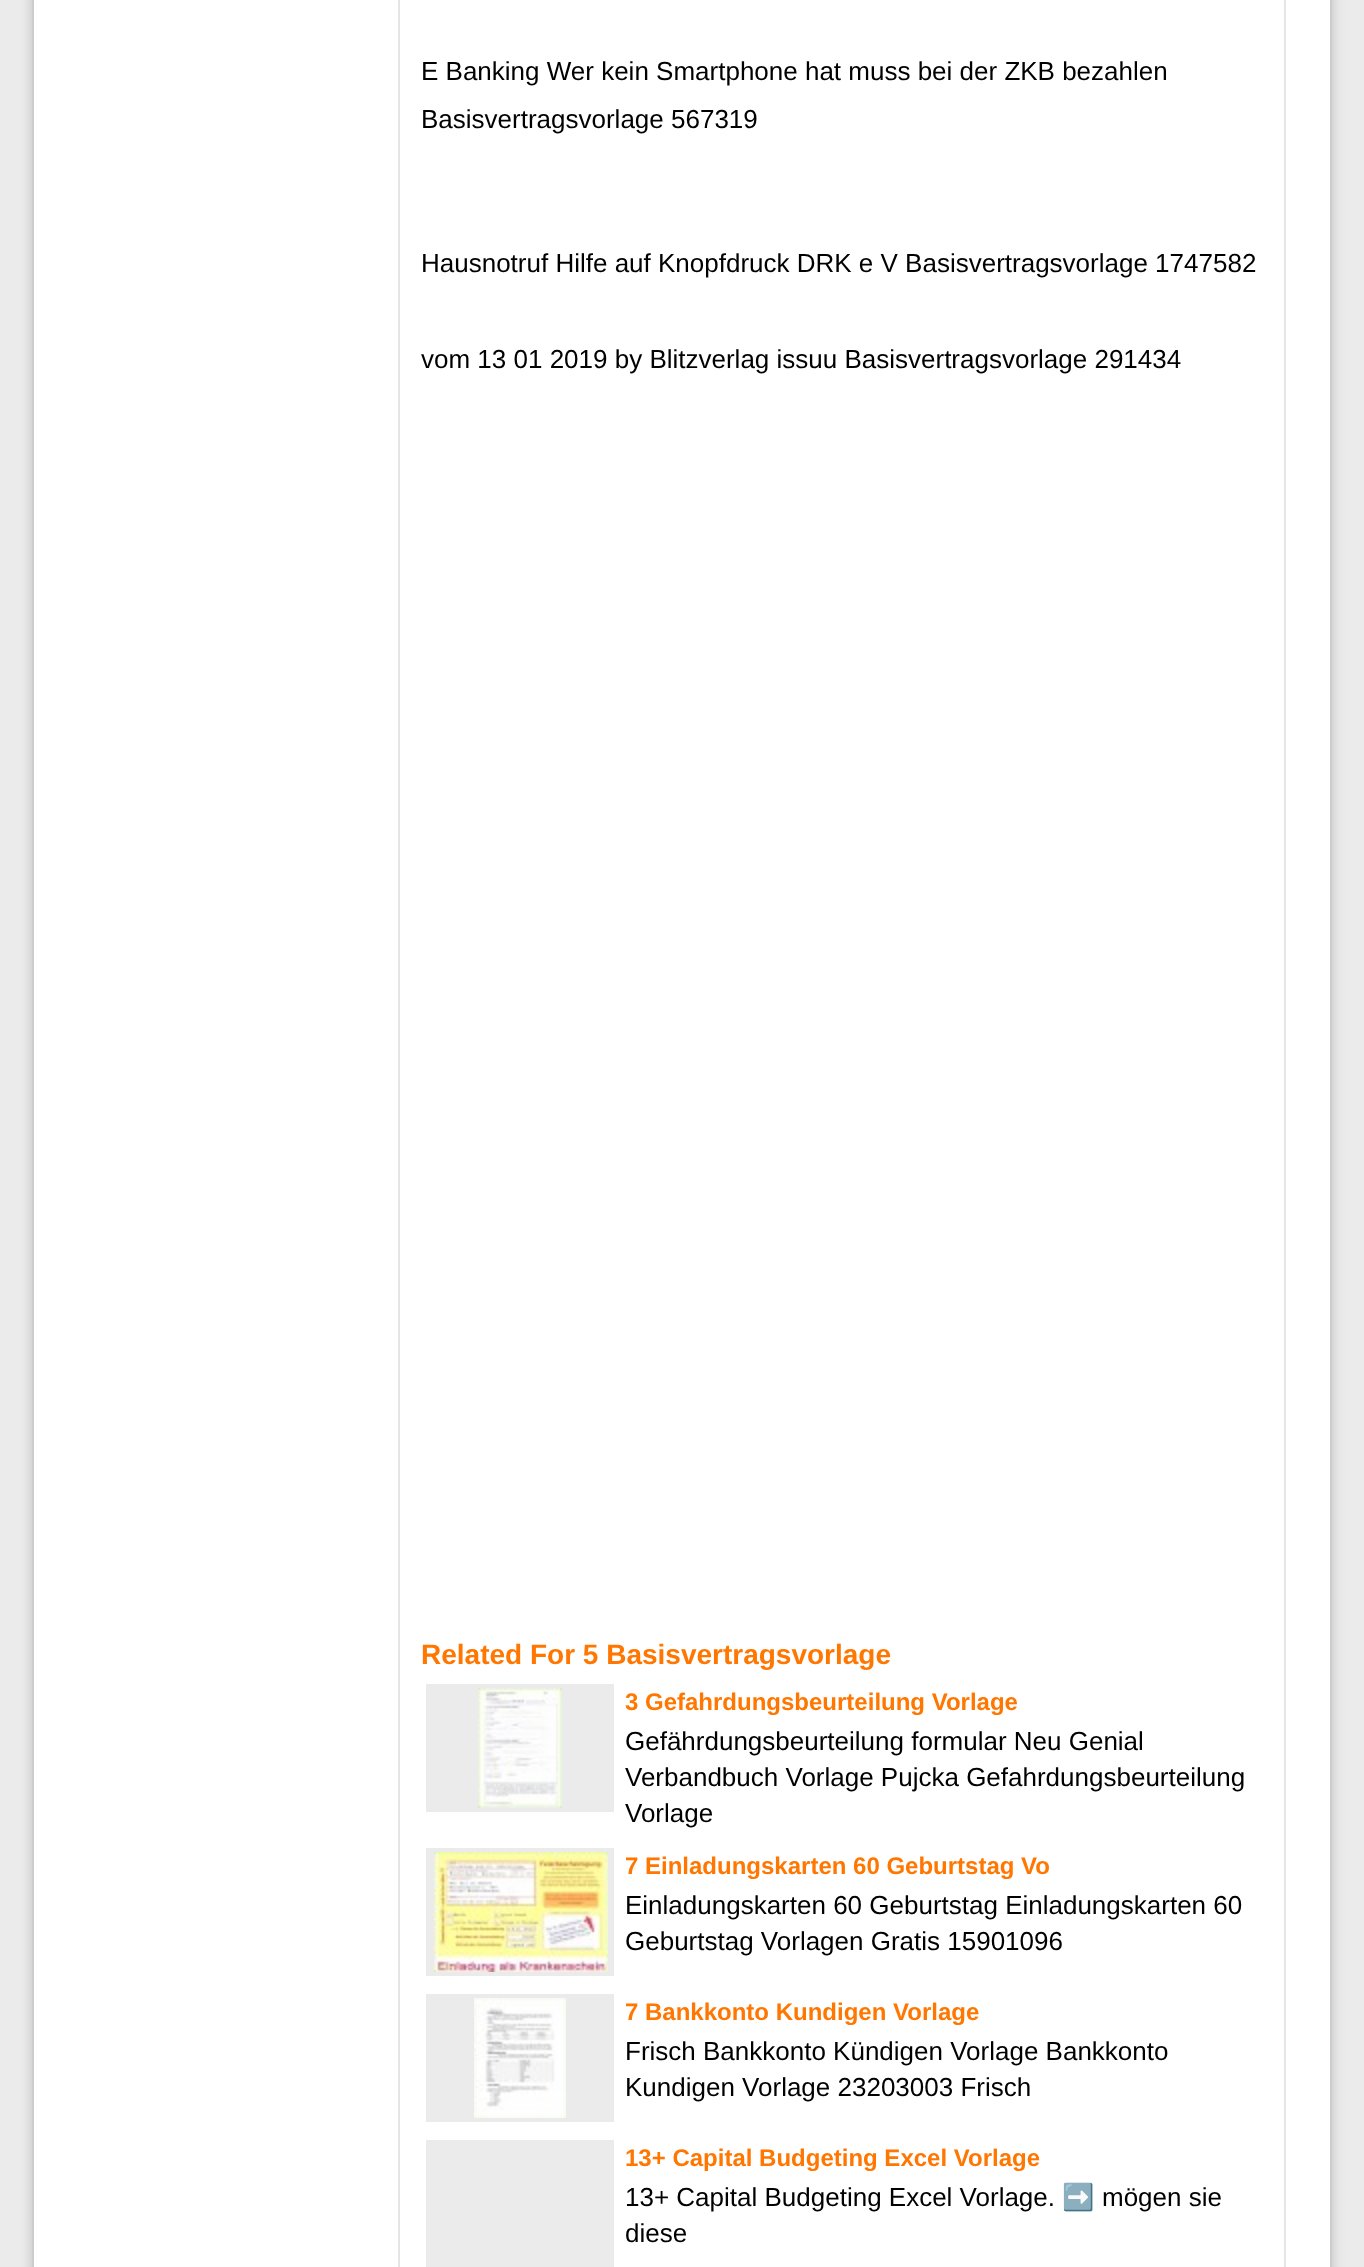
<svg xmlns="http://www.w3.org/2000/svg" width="1364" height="2267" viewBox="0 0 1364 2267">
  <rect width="100%" height="100%" fill="#ebebeb"/>
  <path d="M32 -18h1300v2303H32z" fill="#6464644d" filter="blur(6px)"/>
  <path d="M33 -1h1298v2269H33z" fill="#fff" stroke="#ccc" stroke-width="2"/>
  <path d="M399 -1h886v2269H399z" fill="none" stroke="#e5e5e5" stroke-width="2"/>
  <path d="M426 1684h188v128H426z" fill="#ebebeb"/>
  <image x="478" y="1688" width="84" height="120" href="img/1.png"/>
  <path d="M426 1848h188v128H426z" fill="#ebebeb"/>
  <image x="434" y="1852" width="174" height="120" href="img/2.png"/>
  <path d="M426 1994h188v128H426z" fill="#ebebeb"/>
  <image x="474" y="1998" width="92" height="120" href="img/3.png"/>
  <path d="M426 2140h188v127H426z" fill="#ebebeb"/>
  <g font-family="Liberation Sans" font-size="26" fill="#000">
    <text x="421" y="80">E Banking Wer kein Smartphone hat muss bei der ZKB bezahlen</text>
    <text x="421" y="128">Basisvertragsvorlage 567319</text>
    <text x="421" y="272">Hausnotruf Hilfe auf Knopfdruck DRK e V Basisvertragsvorlage 1747582</text>
    <text x="421" y="368">vom 13 01 2019 by Blitzverlag issuu Basisvertragsvorlage 291434</text>
  </g>
  <text x="421" y="1664" font-family="Liberation Sans" font-size="28" font-weight="bold" fill="#f70">Related For 5 Basisvertragsvorlage</text>
  <text x="625" y="1710" font-family="Liberation Sans" font-size="24" font-weight="bold" fill="#f70">3 Gefahrdungsbeurteilung Vorlage</text>
  <g font-family="Liberation Sans" font-size="26" fill="#000">
    <text x="625" y="1750">Gefährdungsbeurteilung formular Neu Genial</text>
    <text x="625" y="1786">Verbandbuch Vorlage Pujcka Gefahrdungsbeurteilung</text>
    <text x="625" y="1822">Vorlage</text>
  </g>
  <text x="625" y="1874" font-family="Liberation Sans" font-size="24" font-weight="bold" fill="#f70">7 Einladungskarten 60 Geburtstag Vo</text>
  <g font-family="Liberation Sans" font-size="26" fill="#000">
    <text x="625" y="1914">Einladungskarten 60 Geburtstag Einladungskarten 60</text>
    <text x="625" y="1950">Geburtstag Vorlagen Gratis 15901096</text>
  </g>
  <text x="625" y="2020" font-family="Liberation Sans" font-size="24" font-weight="bold" fill="#f70">7 Bankkonto Kundigen Vorlage</text>
  <g font-family="Liberation Sans" font-size="26" fill="#000">
    <text x="625" y="2060">Frisch Bankkonto Kündigen Vorlage Bankkonto</text>
    <text x="625" y="2096">Kundigen Vorlage 23203003 Frisch</text>
  </g>
  <text x="625" y="2166" font-family="Liberation Sans" font-size="24" font-weight="bold" fill="#f70">13+ Capital Budgeting Excel Vorlage</text>
  <text x="625" y="2206" font-family="Liberation Sans" font-size="26" fill="#000">13+ Capital Budgeting Excel Vorlage.</text>
  <text x="1062" y="2206" font-family="Noto Color Emoji" font-size="26" fill="#000">➡️</text>
  <g font-family="Liberation Sans" font-size="26" fill="#000">
    <text x="1102" y="2206">mögen sie</text>
    <text x="625" y="2242">diese</text>
  </g>
</svg>
